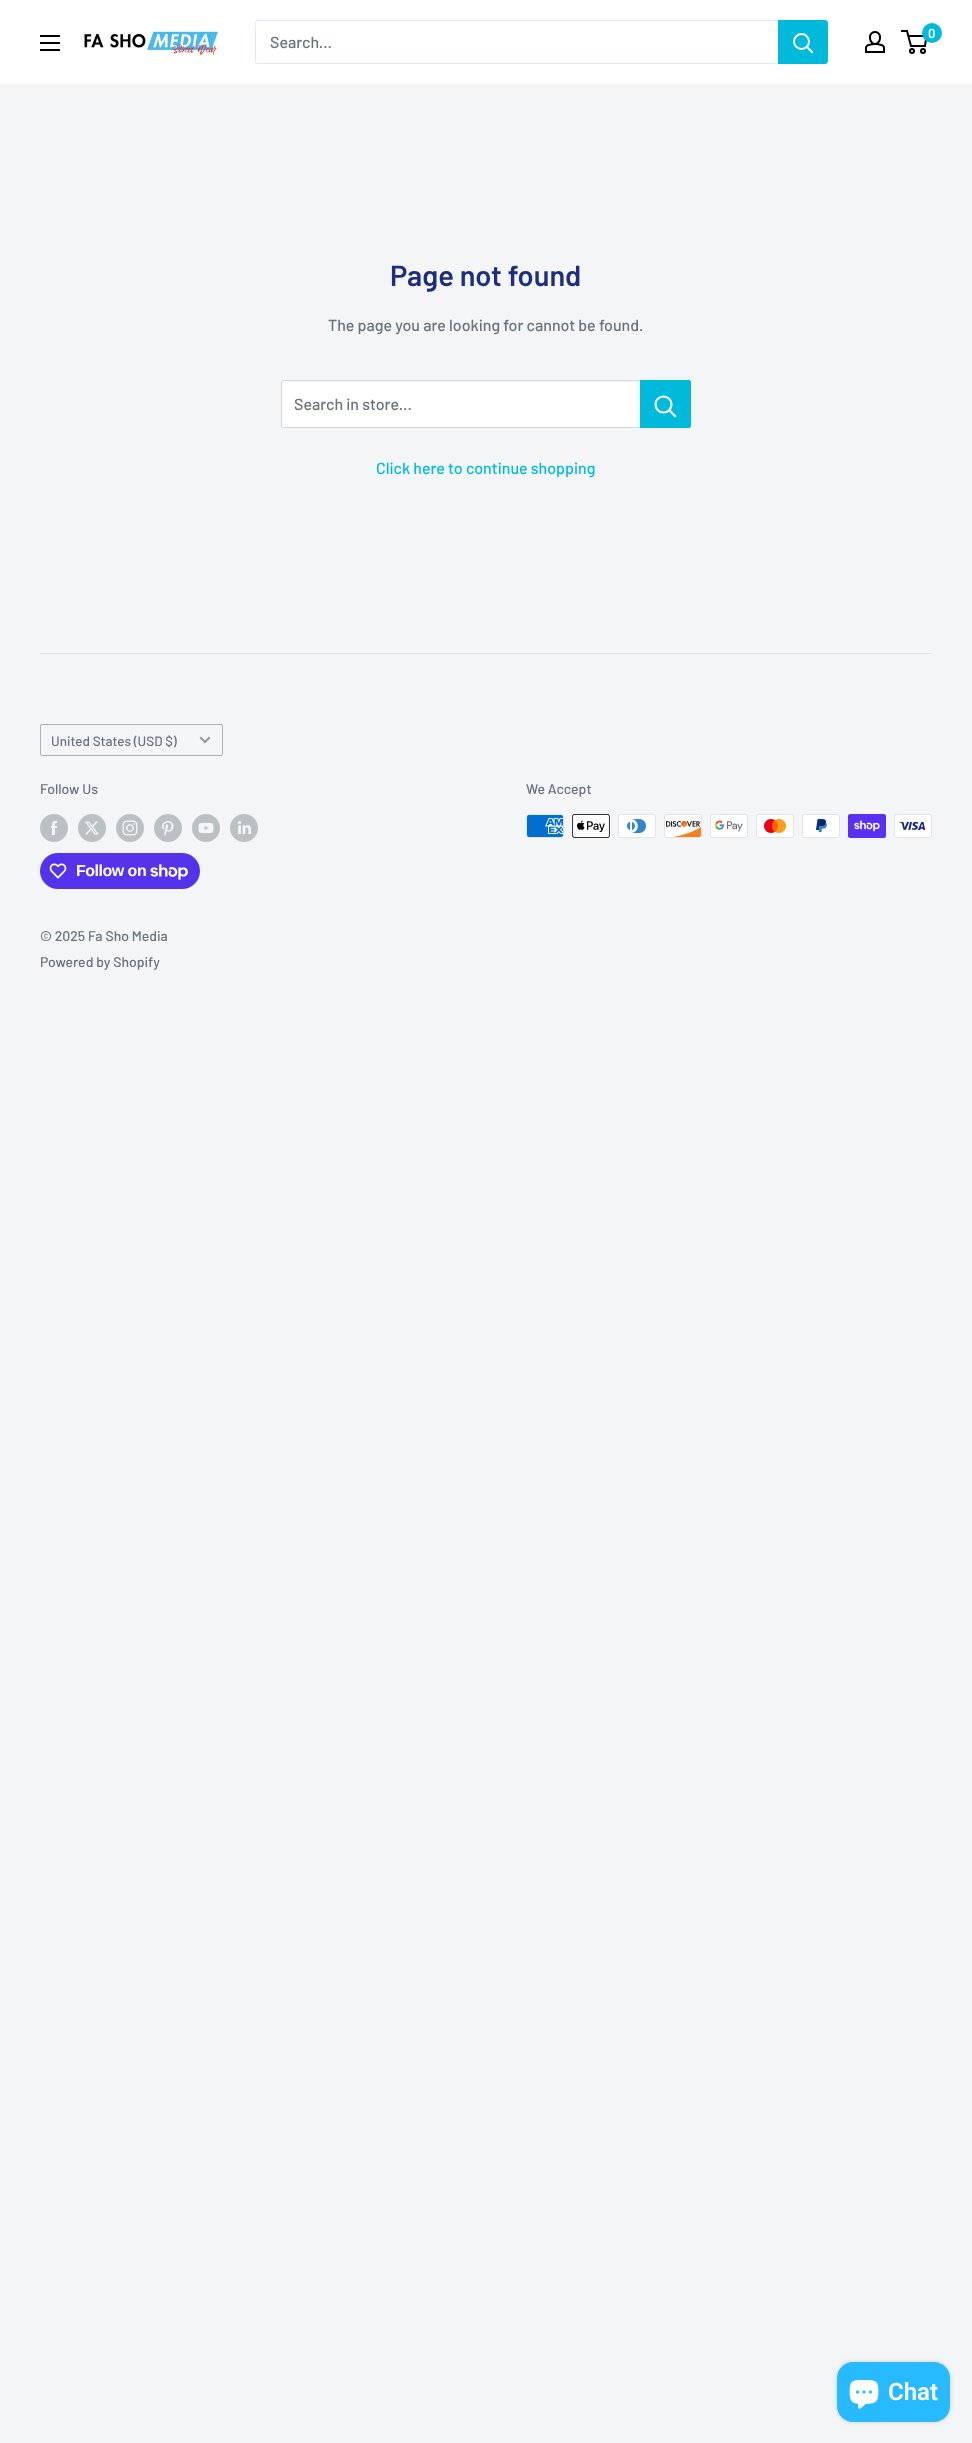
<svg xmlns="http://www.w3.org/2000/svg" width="972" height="2443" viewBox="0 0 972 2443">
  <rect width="100%" height="100%" fill="#f3f5f6"/>
  <path d="M0 0h972v84H0z" fill="#fff"/>
  <image x="40" y="35" width="20" height="16" href="img/1.png"/>
  <image x="84" y="31" width="134" height="24" href="img/2.png"/>
  <path d="M256 63C256 64 257 64 258 64H825C827 64 828 63 828 61V23C828 22 828 21 827 21V54C827 56 829 63 824 63Z" fill="#e3e7fa"/>
  <path d="M259 21H827C827 20 826 20 825 20H258C256 20 255 21 255 23V61C255 62 255 63 256 63V30C256 28 254 21 259 21Z" fill="#e3e7fa"/>
  <path d="M778 20H825C826.5 20 828 21.5 828 23V61C828 62.5 826.5 64 825 64H778Z" fill="#00badb"/>
  <path d="M812 52L807 47" fill="none" stroke="#fff" stroke-width="2" stroke-linecap="square"/>
  <circle cx="801.5" cy="41.5" r="7.5" fill="none" stroke="#fff" stroke-width="2"/>
  <image x="865" y="31" width="20" height="22" href="img/3.png"/>
  <circle cx="912" cy="51" r="2" fill="none" stroke="#000" stroke-width="2"/>
  <circle cx="923" cy="51" r="2" fill="none" stroke="#000" stroke-width="2"/>
  <path d="M908.5 36H926.5L925 46H911L907 31H901" fill="none" stroke="#000" stroke-width="2"/>
  <circle cx="932" cy="33" r="10" fill="#00badb"/>
  <path d="M283 380H640V428H283C282 428 281 427 281 426V382C281 381 282 380 283 380Z" fill="#fff"/>
  <path d="M283 382H640V381H283C282 381 282 382 282 383C282 382 282 382 283 382Z" fill="#f8f8f8"/>
  <path d="M282 380h358v1H282z" fill="#d4d6d8"/>
  <path d="M282 427h358v1H282z" fill="#d4d6d8"/>
  <path d="M281 381h1v46H281z" fill="#d4d6d8"/>
  <path d="M640 380H689C690 380 691 381 691 382V426C691 427 690 428 689 428H640Z" fill="#00badb"/>
  <path d="M675 416L669.5 410.5" fill="none" stroke="#fff" stroke-width="2.2" stroke-linecap="square"/>
  <circle cx="663.5" cy="404.5" r="8" fill="none" stroke="#fff" stroke-width="2.2"/>
  <path d="M40 653h892v1H40z" fill="#e1e3e4"/>
  <path d="M41 753C41 754 41 755 42 755H222V753C222 754 222 754 221 754H41Z" fill="#eef0f1"/>
  <rect x="40.5" y="724.5" width="182" height="31" rx="1.5" fill="none" stroke="#adb4b8"/>
  <path d="M209 738L205 742L201 738" fill="none" stroke="#91999f" stroke-width="2" stroke-linecap="square"/>
  <image x="40" y="814" width="28" height="28" href="img/4.png"/>
  <image x="78" y="814" width="28" height="28" href="img/5.png"/>
  <image x="116" y="814" width="28" height="28" href="img/6.png"/>
  <image x="154" y="814" width="28" height="28" href="img/7.png"/>
  <image x="192" y="814" width="28" height="28" href="img/8.png"/>
  <image x="230" y="814" width="28" height="28" href="img/9.png"/>
  <rect x="40" y="853" width="160" height="36" rx="18" fill="#5433eb"/>
  <image x="49" y="863" width="18" height="16" href="img/10.png"/>
  <image x="150" y="864" width="38" height="16" href="img/11.png"/>
  <image x="526" y="814" width="38" height="24" href="img/12.png"/>
  <image x="572" y="814" width="38" height="24" href="img/13.png"/>
  <image x="618" y="814" width="38" height="24" href="img/14.png"/>
  <image x="664" y="814" width="38" height="24" href="img/15.png"/>
  <image x="710" y="814" width="38" height="24" href="img/16.png"/>
  <image x="756" y="814" width="38" height="24" href="img/17.png"/>
  <image x="802" y="814" width="38" height="24" href="img/18.png"/>
  <image x="848" y="814" width="38" height="24" href="img/19.png"/>
  <image x="894" y="814" width="38" height="24" href="img/20.png"/>
  <rect x="837" y="2362" width="113" height="60" rx="16" fill="#00000026" filter="blur(2.5px)"/>
  <rect x="837" y="2362" width="113" height="60" rx="16" fill="#28baff"/>
  <image x="849" y="2380" width="30" height="29" href="img/21.png"/>
  <text x="270" y="48" font-family="Barlow" font-size="16" font-weight="500" fill="#677279">Search...</text>
  <text x="928" y="38" font-family="Barlow" font-size="13" font-weight="600" fill="#fff">0</text>
  <text x="390" y="286" font-family="Barlow" font-size="29" font-weight="600" fill="#1e2d7d">Page not found</text>
  <g font-family="Barlow" font-size="16" font-weight="500" fill="#677279">
    <text x="328" y="331">The page you are looking for cannot be found.</text>
    <text x="294" y="410">Search in store...</text>
  </g>
  <text x="376" y="474" font-family="Barlow" font-size="16" font-weight="500" fill="#00badb">Click here to continue shopping</text>
  <text x="51" y="746" font-family="Barlow" font-size="13.5" font-weight="500" fill="#677279">United States (USD $)</text>
  <text x="40" y="794" font-family="Barlow" font-size="14" font-weight="500" fill="#677279">Follow Us</text>
  <text x="76" y="876" font-family="Liberation Sans" font-size="16" font-weight="bold" letter-spacing="-0.5" fill="#fff">Follow on</text>
  <g font-family="Barlow" font-size="14" font-weight="500" fill="#677279">
    <text x="526" y="794">We Accept</text>
    <text x="40" y="941">© 2025 Fa Sho Media</text>
    <text x="40" y="967">Powered by Shopify</text>
  </g>
  <text x="888" y="2400" font-family="Roboto" font-size="24" font-weight="600" fill="#fff">Chat</text>
</svg>
